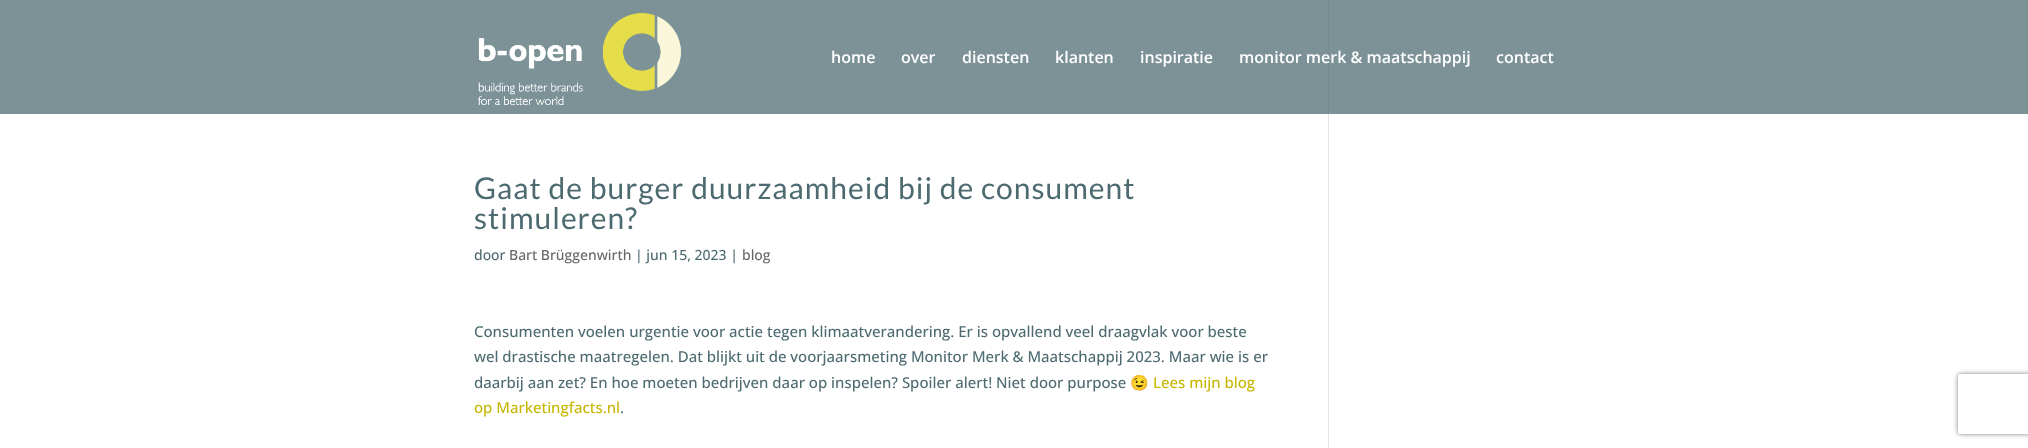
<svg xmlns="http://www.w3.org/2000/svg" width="2028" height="448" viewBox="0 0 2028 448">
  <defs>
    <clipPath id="clip1"><path d="M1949 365H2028V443H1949ZM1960 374H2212C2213 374 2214 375 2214 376V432C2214 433 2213 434 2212 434H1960C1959 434 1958 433 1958 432V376C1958 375 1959 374 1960 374Z" clip-rule="evenodd"/></clipPath>
  </defs>
  <rect width="100%" height="100%" fill="#fff"/>
  <path d="M0 0h2028v114H0z" fill="#7c9297"/>
  <image x="478" y="13" width="203" height="92" href="img/1.png"/>
  <path d="M1328 114h1v334H1328z" fill="#e2e2e2"/>
  <path d="M1328 0h1v114H1328z" fill="#758a8f"/>
  <g clip-path="url(#clip1)">
    <rect x="1958" y="374" width="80" height="60" rx="2" fill="#808080" filter="blur(2.5px)"/>
  </g>
  <g font-family="Open Sans" font-size="16" font-weight="600" fill="#fff">
    <text x="831" y="63">home</text>
    <text x="901" y="63">over</text>
    <text x="962" y="63">diensten</text>
    <text x="1055" y="63">klanten</text>
    <text x="1140" y="63">inspiratie</text>
    <text x="1239" y="63">monitor merk &amp; maatschappij</text>
    <text x="1496" y="63">contact</text>
  </g>
  <g font-family="Lato" font-size="30" letter-spacing="1" fill="#4c6a70">
    <text x="474" y="199">Gaat de burger duurzaamheid bij de consument</text>
    <text x="474" y="229">stimuleren?</text>
  </g>
  <text x="474" y="260" font-family="Open Sans" font-size="14" font-weight="500" fill="#4c6a70">door</text>
  <text x="509" y="260" font-family="Open Sans" font-size="14" font-weight="500" fill="#666">Bart Brüggenwirth</text>
  <text x="635" y="260" font-family="Open Sans" font-size="14" font-weight="500" fill="#4c6a70">| jun 15, 2023 |</text>
  <text x="742" y="260" font-family="Open Sans" font-size="14" font-weight="500" fill="#666">blog</text>
  <g font-family="Open Sans" font-size="15" font-weight="500" fill="#4c6a70">
    <text x="474" y="337">Consumenten voelen urgentie voor actie tegen klimaatverandering. Er is opvallend veel draagvlak voor beste</text>
    <text x="474" y="362">wel drastische maatregelen. Dat blijkt uit de voorjaarsmeting Monitor Merk &amp; Maatschappij 2023. Maar wie is er</text>
    <text x="474" y="388">daarbij aan zet? En hoe moeten bedrijven daar op inspelen? Spoiler alert! Niet door purpose</text>
  </g>
  <text x="1130" y="388" font-family="Noto Color Emoji" font-size="15" fill="#4c6a70">😉</text>
  <g font-family="Open Sans" font-size="15" font-weight="500" fill="#c6b600">
    <text x="1153" y="388">Lees mijn blog</text>
    <text x="474" y="413">op Marketingfacts.nl</text>
  </g>
  <text x="620" y="413" font-family="Open Sans" font-size="15" font-weight="500" fill="#4c6a70">.</text>
</svg>
